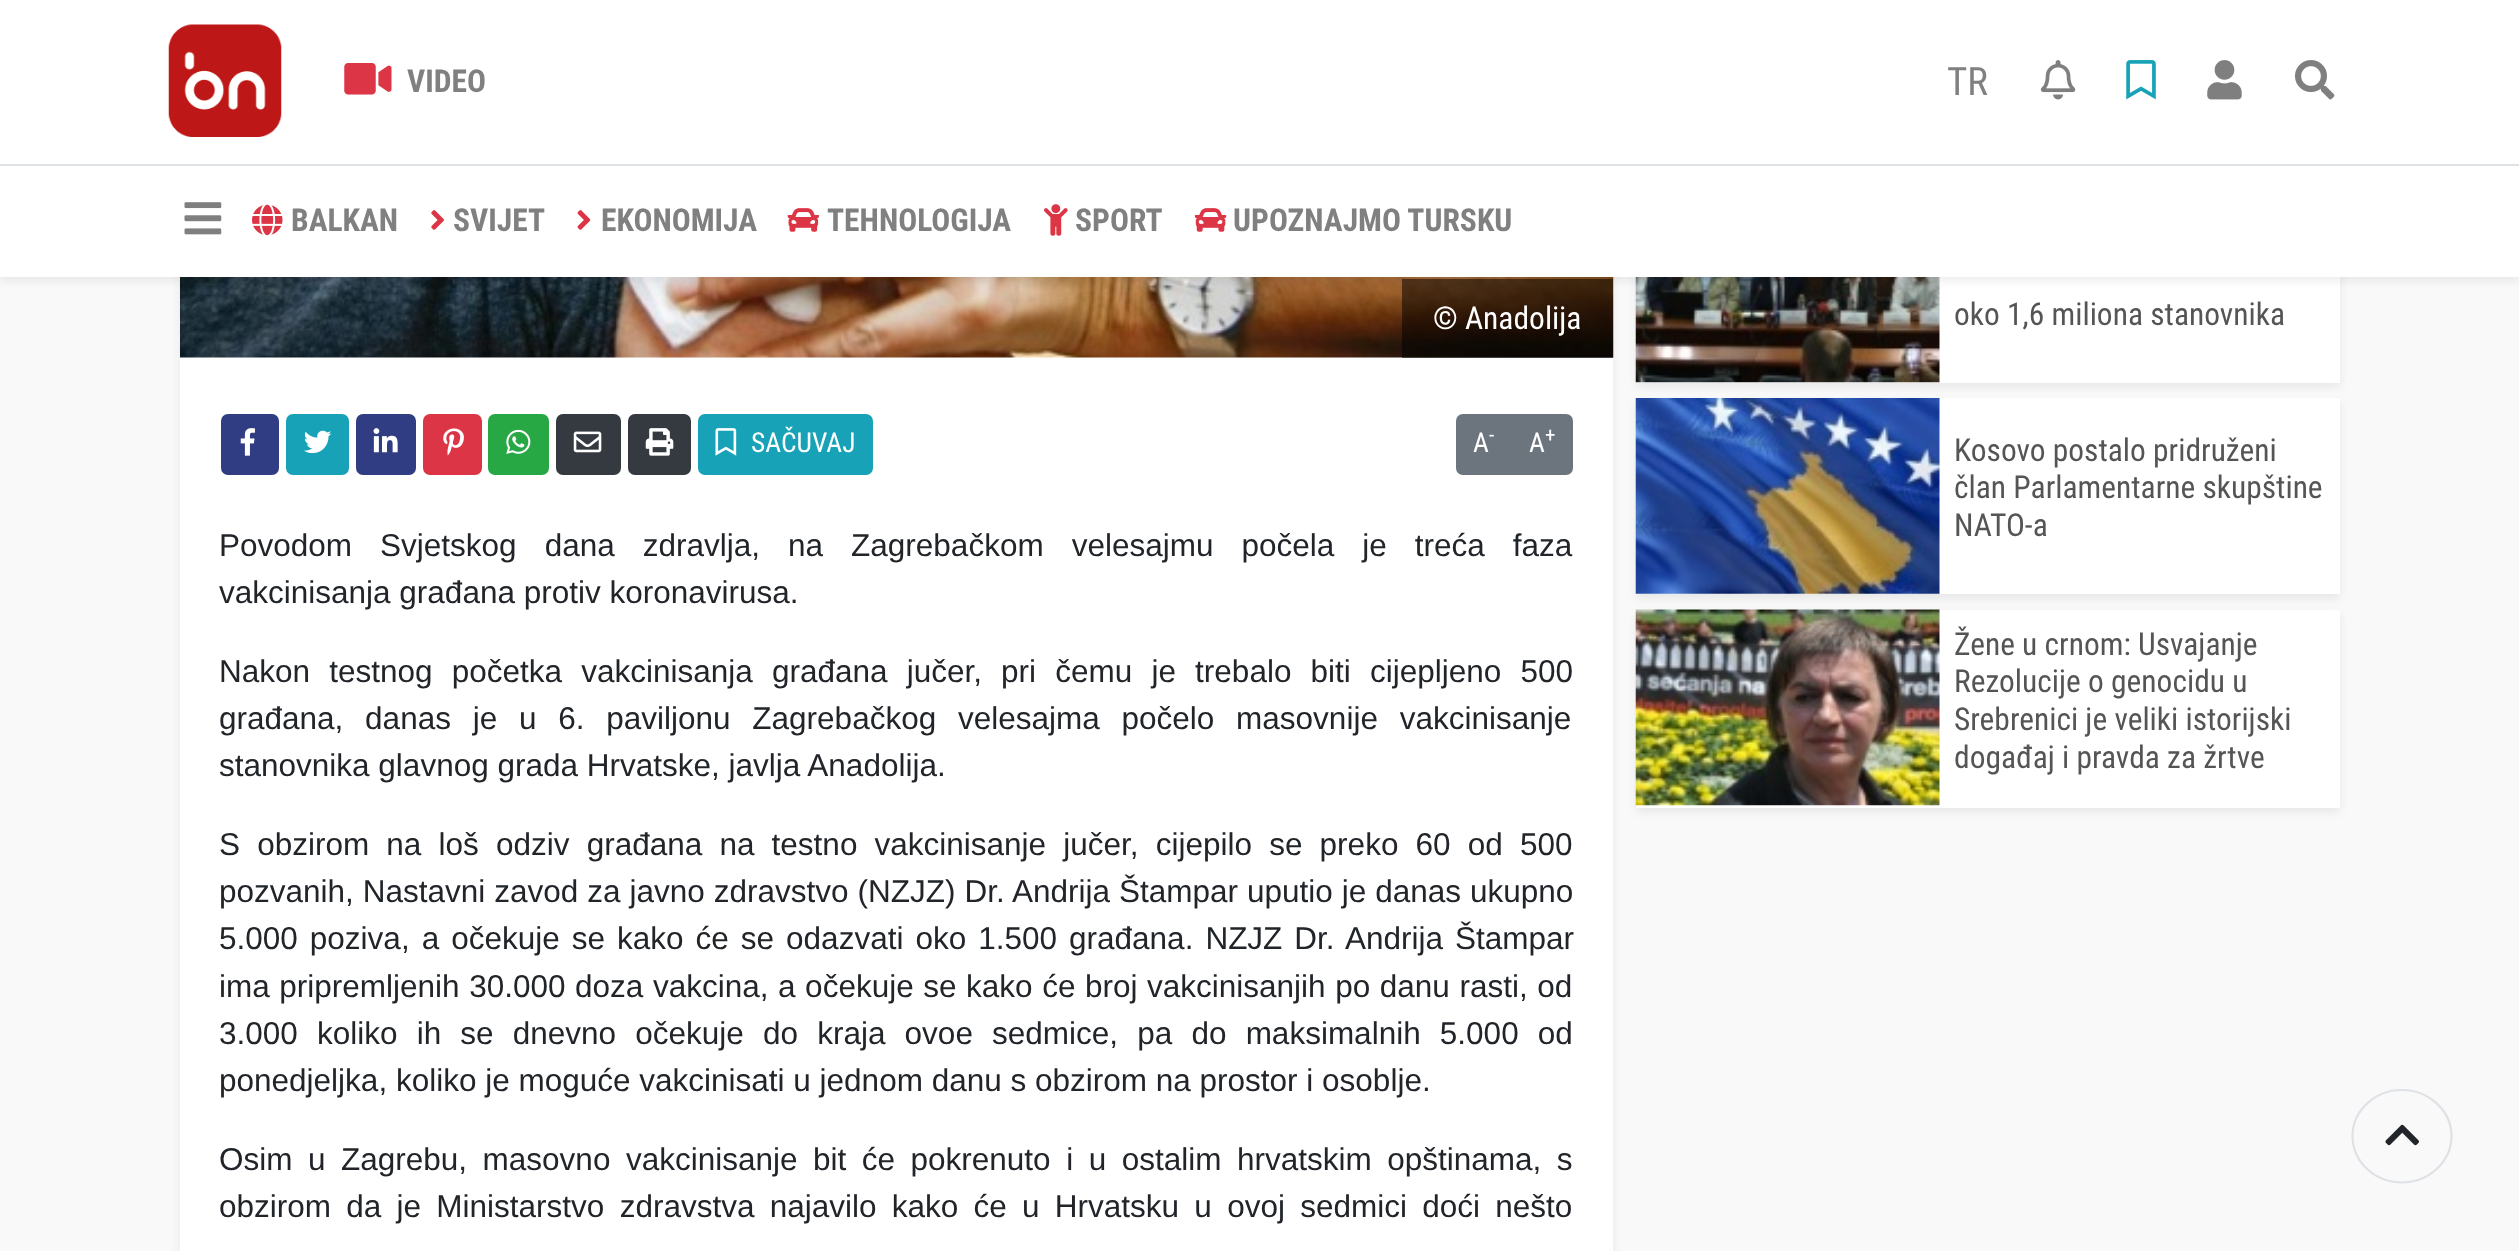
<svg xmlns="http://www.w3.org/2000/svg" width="2519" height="1251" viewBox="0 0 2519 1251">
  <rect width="100%" height="100%" fill="#f9f9f9"/>
  <rect x="180" y="-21" width="1433" height="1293" rx="9" fill="#00000012" filter="blur(4px)"/>
  <path d="M180 357h1433v894H180z" fill="#fff"/>
  <image x="180" y="277" width="1434" height="81" href="img/14.png"/>
  <path d="M1402 279h211v79H1402z" fill="#00000080"/>
  <path d="M1636 191h704v196H1636z" fill="#00000012" filter="blur(4px)"/>
  <path d="M1636 277h704v106H1636z" fill="#fff"/>
  <image x="1635" y="277" width="305" height="106" href="img/23.png"/>
  <path d="M0 5h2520v276H0z" fill="#00000012" filter="blur(4px)"/>
  <path d="M0 0h2519v277H0z" fill="#fff"/>
  <path d="M0 164h2519v2H0z" fill="#dee2e6"/>
  <image x="168" y="24" width="114" height="113" href="img/1.png"/>
  <image x="344" y="63" width="48" height="32" href="img/2.png"/>
  <image x="2040" y="60" width="36" height="40" href="img/3.png"/>
  <image x="2126" y="60" width="30" height="40" href="img/4.png"/>
  <image x="2207" y="60" width="35" height="40" href="img/5.png"/>
  <image x="2295" y="60" width="40" height="40" href="img/6.png"/>
  <image x="184" y="202" width="38" height="33" href="img/7.png"/>
  <image x="252" y="204" width="31" height="32" href="img/8.png"/>
  <image x="431" y="210" width="13" height="20" href="img/9.png"/>
  <image x="577" y="210" width="14" height="20" href="img/10.png"/>
  <image x="787" y="208" width="32" height="24" href="img/11.png"/>
  <image x="1044" y="204" width="24" height="32" href="img/12.png"/>
  <image x="1194" y="208" width="33" height="24" href="img/13.png"/>
  <rect x="222" y="415" width="56" height="59" rx="6" fill="#303d83" stroke="#303d83" stroke-width="2"/>
  <image x="240" y="428" width="15" height="28" href="img/15.png"/>
  <rect x="287" y="415" width="61" height="59" rx="6" fill="#17a2b8" stroke="#17a2b8" stroke-width="2"/>
  <image x="304" y="430" width="28" height="24" href="img/16.png"/>
  <rect x="357" y="415" width="58" height="59" rx="6" fill="#303d83" stroke="#303d83" stroke-width="2"/>
  <image x="373" y="428" width="25" height="25" href="img/17.png"/>
  <rect x="424" y="415" width="57" height="59" rx="6" fill="#dc3545" stroke="#dc3545" stroke-width="2"/>
  <image x="443" y="428" width="21" height="28" href="img/18.png"/>
  <rect x="489" y="415" width="59" height="59" rx="6" fill="#28a745" stroke="#28a745" stroke-width="2"/>
  <image x="506" y="429" width="25" height="25" href="img/19.png"/>
  <rect x="557" y="415" width="63" height="59" rx="6" fill="#343a40" stroke="#343a40" stroke-width="2"/>
  <image x="573" y="431" width="29" height="22" href="img/20.png"/>
  <rect x="629" y="415" width="61" height="59" rx="6" fill="#343a40" stroke="#343a40" stroke-width="2"/>
  <image x="645" y="428" width="29" height="28" href="img/21.png"/>
  <rect x="699" y="415" width="173" height="59" rx="6" fill="#17a2b8" stroke="#17a2b8" stroke-width="2"/>
  <image x="715" y="428" width="22" height="28" href="img/22.png"/>
  <path d="M1463 415H1513V474H1463C1459.5 474 1457 471.5 1457 468V421C1457 417.5 1459.5 415 1463 415Z" fill="#6c757d" stroke="#6c757d" stroke-width="2"/>
  <path d="M1513 415H1566C1569.5 415 1572 417.5 1572 421V468C1572 471.5 1569.5 474 1566 474H1513Z" fill="#6c757d" stroke="#6c757d" stroke-width="2"/>
  <path d="M1636 403h704v196H1636z" fill="#00000012" filter="blur(4px)"/>
  <path d="M1636 398h704v196H1636z" fill="#fff"/>
  <image x="1635" y="398" width="305" height="196" href="img/24.png"/>
  <path d="M1636 614h704v198H1636z" fill="#00000012" filter="blur(4px)"/>
  <path d="M1636 610h704v198H1636z" fill="#fff"/>
  <image x="1635" y="609" width="305" height="197" href="img/25.png"/>
  <path d="M2402 1090C2429 1090 2451.5 1111 2451.5 1136C2451.5 1161.5 2429 1182.5 2402 1182.5C2374.5 1182.5 2352.5 1161.5 2352.5 1136C2352.5 1111 2374.5 1090 2402 1090Z" fill="none" stroke="#dee2e6" stroke-width="2.2"/>
  <image x="2385" y="1124" width="34" height="22" href="img/26.png"/>
  <text x="407" y="92" font-family="Roboto Condensed" font-size="31.5" font-weight="bold" fill="#808080">VIDEO</text>
  <text x="1947" y="95" font-family="Roboto Condensed" font-size="39" fill="#808080">TR</text>
  <g font-family="Roboto Condensed" font-size="31.5" font-weight="bold" fill="#808080">
    <text x="291" y="231">BALKAN</text>
    <text x="453" y="231">SVIJET</text>
    <text x="601" y="231">EKONOMIJA</text>
    <text x="827" y="231">TEHNOLOGIJA</text>
    <text x="1075" y="231">SPORT</text>
    <text x="1233" y="231">UPOZNAJMO TURSKU</text>
  </g>
  <text x="1433" y="329" font-family="Roboto Condensed" font-size="31.5" fill="#fff">© Anadolija</text>
  <g font-family="Roboto Condensed" font-size="27.5" fill="#fff">
    <text x="751" y="452">SAČUVAJ</text>
    <text x="1473" y="452">A</text>
  </g>
  <text x="1489" y="442" font-family="Roboto Condensed" font-size="21" fill="#fff">-</text>
  <text x="1529" y="452" font-family="Roboto Condensed" font-size="27.5" fill="#fff">A</text>
  <text x="1545" y="442" font-family="Roboto Condensed" font-size="21" fill="#fff">+</text>
  <g font-family="Liberation Sans" font-size="31.5" fill="#212529">
    <text x="219" y="556" word-spacing="19.25">Povodom Svjetskog dana zdravlja, na Zagrebačkom velesajmu počela je treća faza</text>
    <text x="219" y="603">vakcinisanja građana protiv koronavirusa.</text>
    <text x="219" y="682" word-spacing="10.4">Nakon testnog početka vakcinisanja građana jučer, pri čemu je trebalo biti cijepljeno 500</text>
    <text x="219" y="729" word-spacing="13">građana, danas je u 6. paviljonu Zagrebačkog velesajma počelo masovnije vakcinisanje</text>
    <text x="219" y="776">stanovnika glavnog grada Hrvatske, javlja Anadolija.</text>
    <text x="219" y="855" word-spacing="8.4">S obzirom na loš odziv građana na testno vakcinisanje jučer, cijepilo se preko 60 od 500</text>
    <text x="219" y="902" word-spacing="0.2">pozvanih, Nastavni zavod za javno zdravstvo (NZJZ) Dr. Andrija Štampar uputio je danas ukupno</text>
    <text x="219" y="949" word-spacing="3.25">5.000 poziva, a očekuje se kako će se odazvati oko 1.500 građana. NZJZ Dr. Andrija Štampar</text>
    <text x="219" y="997" word-spacing="0.8">ima pripremljenih 30.000 doza vakcina, a očekuje se kako će broj vakcinisanjih po danu rasti, od</text>
    <text x="219" y="1044" word-spacing="10.4">3.000 koliko ih se dnevno očekuje do kraja ovoe sedmice, pa do maksimalnih 5.000 od</text>
    <text x="219" y="1091">ponedjeljka, koliko je moguće vakcinisati u jednom danu s obzirom na prostor i osoblje.</text>
    <text x="219" y="1170" word-spacing="6.75">Osim u Zagrebu, masovno vakcinisanje bit će pokrenuto i u ostalim hrvatskim opštinama, s</text>
    <text x="219" y="1217" word-spacing="6.5">obzirom da je Ministarstvo zdravstva najavilo kako će u Hrvatsku u ovoj sedmici doći nešto</text>
  </g>
  <g font-family="Roboto Condensed" font-size="31.5" fill="#555">
    <text x="1954" y="325">oko 1,6 miliona stanovnika</text>
    <text x="1954" y="461">Kosovo postalo pridruženi</text>
    <text x="1954" y="498">član Parlamentarne skupštine</text>
    <text x="1954" y="536">NATO-a</text>
    <text x="1954" y="655">Žene u crnom: Usvajanje</text>
    <text x="1954" y="692">Rezolucije o genocidu u</text>
    <text x="1954" y="730">Srebrenici je veliki istorijski</text>
    <text x="1954" y="768">događaj i pravda za žrtve</text>
  </g>
</svg>
